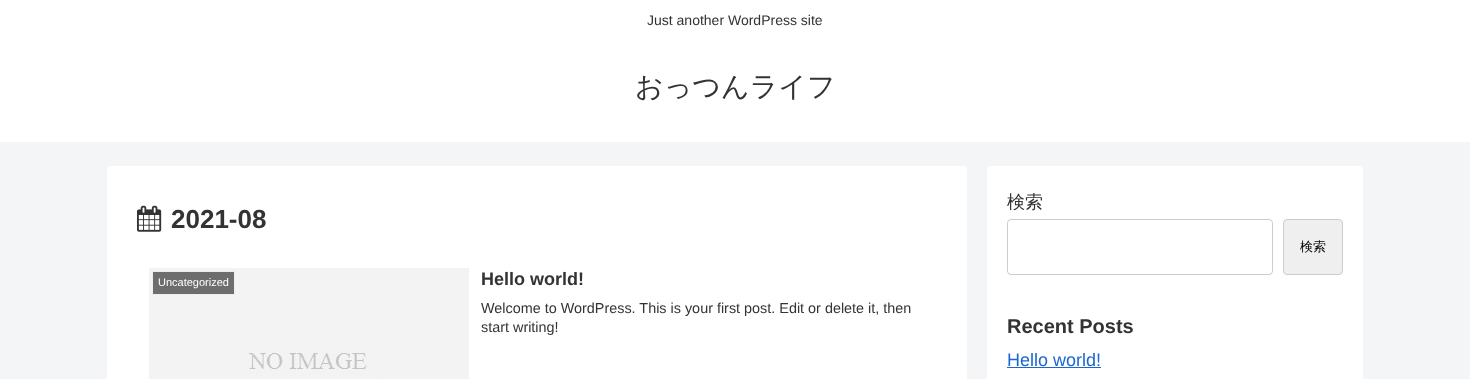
<svg xmlns="http://www.w3.org/2000/svg" width="1470" height="379" viewBox="0 0 1470 379">
  <rect width="100%" height="100%" fill="#f4f5f7"/>
  <path d="M0 0h1470v142H0z" fill="#fff"/>
  <rect x="107" y="166" width="860" height="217" rx="4" fill="#fff"/>
  <image x="137" y="205" width="25" height="27" href="img/1.png"/>
  <image x="149" y="268" width="320" height="111" href="img/2.png"/>
  <path d="M152.5 271.5h82v23H152.5z" fill="#6d6d6d" stroke="#eee"/>
  <rect x="987" y="166" width="376" height="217" rx="4" fill="#fff"/>
  <rect x="1007.5" y="219.5" width="265" height="55" rx="3.5" fill="none" stroke="#ccc"/>
  <rect x="1283.5" y="219.5" width="59" height="55" rx="3.5" fill="#efefef" stroke="#ccc"/>
  <path d="M1007 367h94v1H1007z" fill="#1967d2"/>
  <text x="647" y="25" font-family="Liberation Sans" font-size="14" fill="#333">Just another WordPress site</text>
  <text x="635" y="96" font-family="WenQuanYi Zen Hei" font-size="28" font-weight="500" fill="#333">おっつんライフ</text>
  <text x="171" y="228" font-family="Liberation Sans" font-size="26" font-weight="bold" fill="#333">2021-08</text>
  <text x="158" y="286" font-family="Liberation Sans" font-size="11" fill="#fff">Uncategorized</text>
  <text x="481" y="285" font-family="Liberation Sans" font-size="18" font-weight="bold" fill="#333">Hello world!</text>
  <g font-family="Liberation Sans" font-size="14.4" fill="#333">
    <text x="481" y="313">Welcome to WordPress. This is your first post. Edit or delete it, then</text>
    <text x="481" y="332">start writing!</text>
  </g>
  <text x="1007" y="208" font-family="WenQuanYi Zen Hei" font-size="18" font-weight="500" fill="#333">検索</text>
  <text x="1300" y="251" font-family="WenQuanYi Zen Hei" font-size="13" font-weight="500" fill="#000">検索</text>
  <text x="1007" y="333" font-family="Liberation Sans" font-size="20" font-weight="bold" fill="#333">Recent Posts</text>
  <text x="1007" y="366" font-family="Liberation Sans" font-size="18" fill="#1967d2">Hello world!</text>
</svg>
